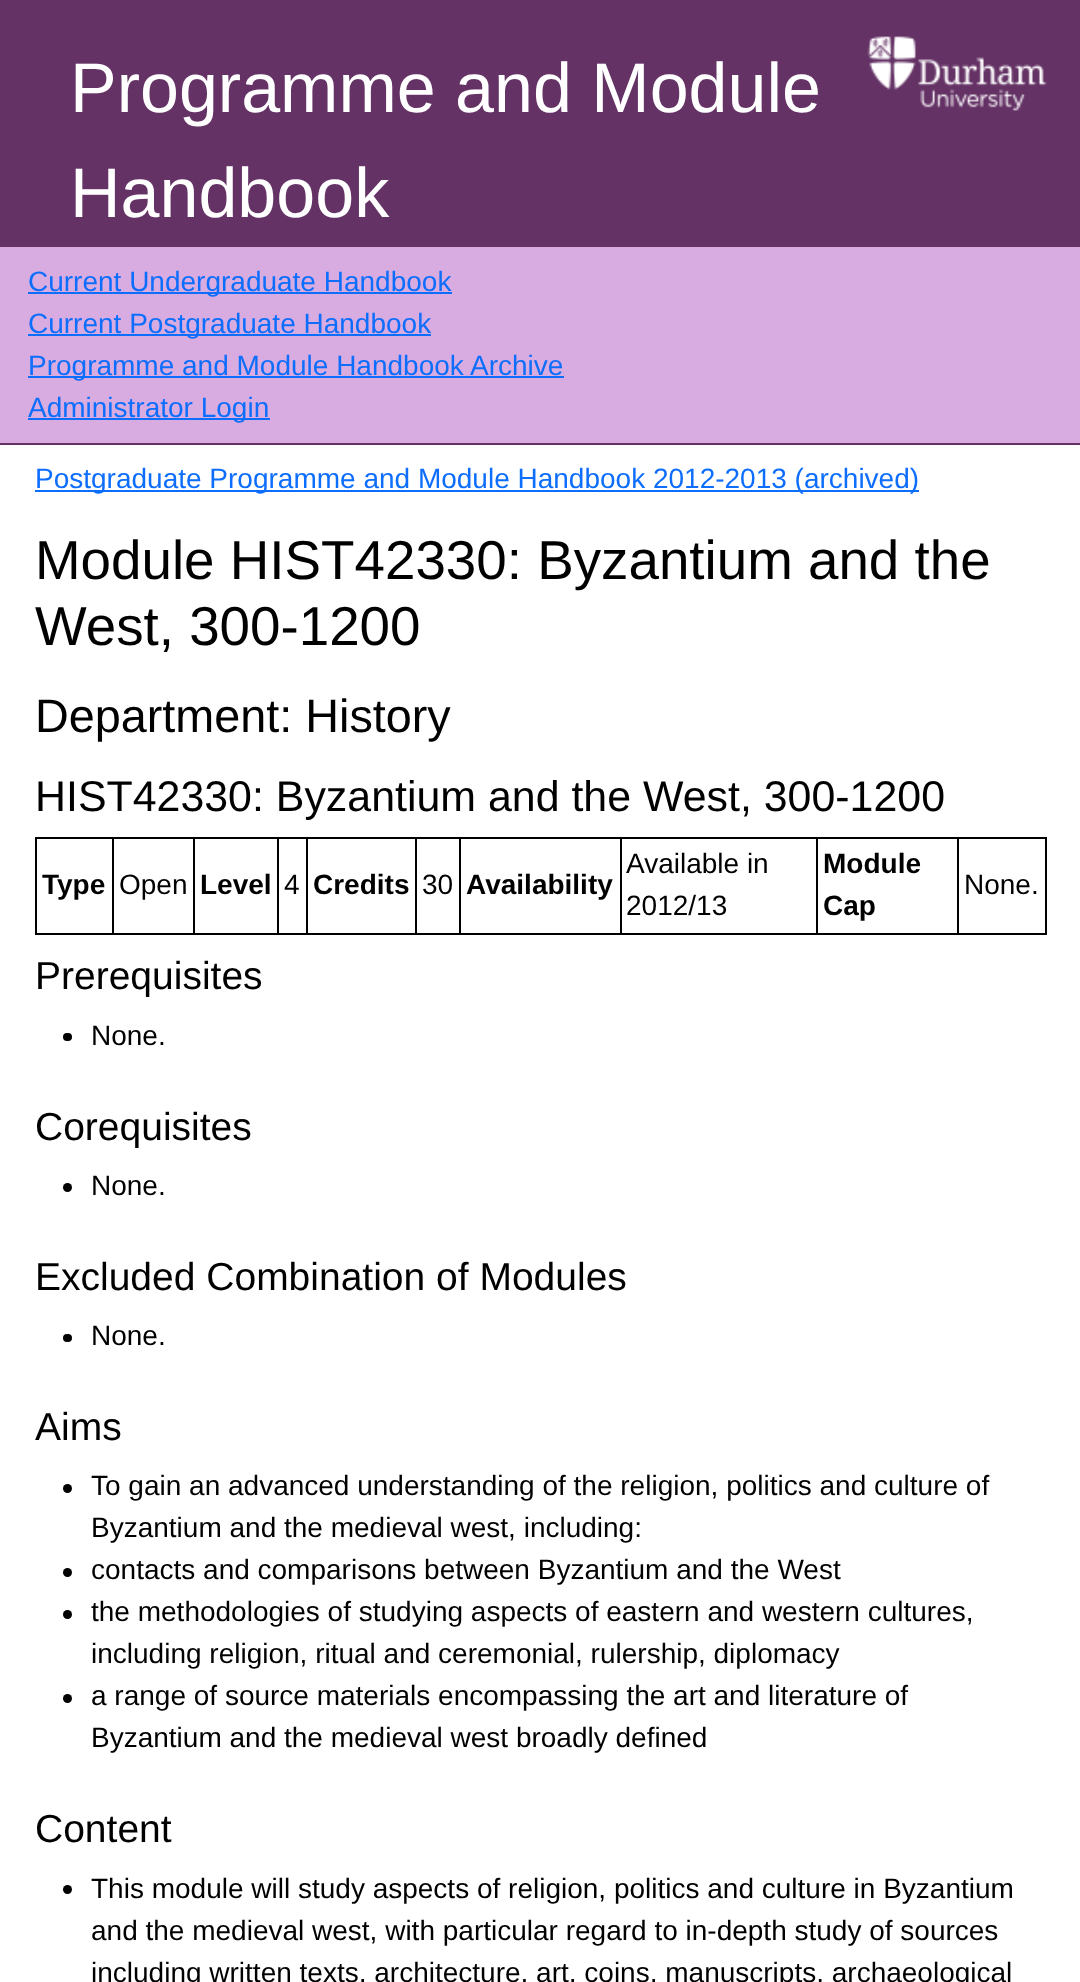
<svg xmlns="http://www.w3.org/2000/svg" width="1080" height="1982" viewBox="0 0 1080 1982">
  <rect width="100%" height="100%" fill="#fff"/>
  <path d="M0 0h1080v247H0z" fill="#643265"/>
  <image x="867" y="36" width="180" height="75" href="img/1.png"/>
  <path d="M0 247h1080v196H0z" fill="#d8ace0"/>
  <path d="M0 443h1080v2H0z" fill="#643265"/>
  <path d="M28 292h424v2H28z" fill="#0d6efd"/>
  <path d="M28 334h403v2H28z" fill="#0d6efd"/>
  <path d="M28 376h536v2H28z" fill="#0d6efd"/>
  <path d="M28 418h242v2H28z" fill="#0d6efd"/>
  <path d="M35 490h884v2H35z" fill="#0d6efd"/>
  <path d="M957 837h90v2H957z" fill="#000"/>
  <path d="M1045 837h2v98H1045z" fill="#000"/>
  <path d="M957 933h90v2H957z" fill="#000"/>
  <path d="M957 837h2v98H957z" fill="#000"/>
  <path d="M816 837h143v2H816z" fill="#000"/>
  <path d="M816 933h143v2H816z" fill="#000"/>
  <path d="M816 837h2v98H816z" fill="#000"/>
  <path d="M620 837h197v2H620z" fill="#000"/>
  <path d="M620 933h197v2H620z" fill="#000"/>
  <path d="M620 837h2v98H620z" fill="#000"/>
  <path d="M459 837h162v2H459z" fill="#000"/>
  <path d="M459 933h162v2H459z" fill="#000"/>
  <path d="M459 837h2v98H459z" fill="#000"/>
  <path d="M415 837h45v2H415z" fill="#000"/>
  <path d="M415 933h45v2H415z" fill="#000"/>
  <path d="M415 837h2v98H415z" fill="#000"/>
  <path d="M306 837h111v2H306z" fill="#000"/>
  <path d="M306 933h111v2H306z" fill="#000"/>
  <path d="M306 837h2v98H306z" fill="#000"/>
  <path d="M277 837h31v2H277z" fill="#000"/>
  <path d="M277 933h31v2H277z" fill="#000"/>
  <path d="M277 837h2v98H277z" fill="#000"/>
  <path d="M193 837h85v2H193z" fill="#000"/>
  <path d="M193 933h85v2H193z" fill="#000"/>
  <path d="M193 837h2v98H193z" fill="#000"/>
  <path d="M112 837h82v2H112z" fill="#000"/>
  <path d="M112 933h82v2H112z" fill="#000"/>
  <path d="M112 837h2v98H112z" fill="#000"/>
  <path d="M35 837h79v2H35z" fill="#000"/>
  <path d="M35 933h79v2H35z" fill="#000"/>
  <path d="M35 837h2v98H35z" fill="#000"/>
  <rect x="63" y="1033" width="9" height="8" rx="4" fill="#000"/>
  <circle cx="67.5" cy="1187.5" r="4.5" fill="#000"/>
  <rect x="63" y="1334" width="9" height="8" rx="4" fill="#000"/>
  <circle cx="67.5" cy="1488.5" r="4.5" fill="#000"/>
  <circle cx="67.5" cy="1572.5" r="4.5" fill="#000"/>
  <circle cx="67.5" cy="1614.5" r="4.5" fill="#000"/>
  <circle cx="67.5" cy="1698.5" r="4.5" fill="#000"/>
  <circle cx="67.5" cy="1889.5" r="4.5" fill="#000"/>
  <g font-family="Liberation Sans" font-size="70" fill="#fff">
    <text x="70" y="112">Programme and Module</text>
    <text x="70" y="217">Handbook</text>
  </g>
  <g font-family="Liberation Sans" font-size="28" fill="#0d6efd">
    <text x="28" y="291">Current Undergraduate Handbook</text>
    <text x="28" y="333">Current Postgraduate Handbook</text>
    <text x="28" y="375">Programme and Module Handbook Archive</text>
    <text x="28" y="417">Administrator Login</text>
    <text x="35" y="488">Postgraduate Programme and Module Handbook 2012-2013 (archived)</text>
  </g>
  <g font-family="Liberation Sans" font-size="54.75" fill="#000">
    <text x="35" y="579">Module HIST42330: Byzantium and the</text>
    <text x="35" y="645">West, 300-1200</text>
  </g>
  <text x="35" y="732" font-family="Liberation Sans" font-size="46.75" fill="#000">Department: History</text>
  <text x="35" y="811" font-family="Liberation Sans" font-size="42.9" fill="#000">HIST42330: Byzantium and the West, 300-1200</text>
  <text x="42" y="894" font-family="Liberation Sans" font-size="28" font-weight="bold" fill="#000">Type</text>
  <text x="119" y="894" font-family="Liberation Sans" font-size="28" fill="#000">Open</text>
  <text x="200" y="894" font-family="Liberation Sans" font-size="28" font-weight="bold" fill="#000">Level</text>
  <text x="284" y="894" font-family="Liberation Sans" font-size="28" fill="#000">4</text>
  <text x="313" y="894" font-family="Liberation Sans" font-size="28" font-weight="bold" fill="#000">Credits</text>
  <text x="422" y="894" font-family="Liberation Sans" font-size="28" fill="#000">30</text>
  <text x="466" y="894" font-family="Liberation Sans" font-size="28" font-weight="bold" fill="#000">Availability</text>
  <g font-family="Liberation Sans" font-size="28" fill="#000">
    <text x="626" y="873">Available in</text>
    <text x="626" y="915">2012/13</text>
  </g>
  <g font-family="Liberation Sans" font-size="28" font-weight="bold" fill="#000">
    <text x="823" y="873">Module</text>
    <text x="823" y="915">Cap</text>
  </g>
  <text x="964" y="894" font-family="Liberation Sans" font-size="28" fill="#000">None.</text>
  <text x="35" y="989" font-family="Liberation Sans" font-size="39" fill="#000">Prerequisites</text>
  <text x="91" y="1045" font-family="Liberation Sans" font-size="28" fill="#000">None.</text>
  <text x="35" y="1140" font-family="Liberation Sans" font-size="39" fill="#000">Corequisites</text>
  <text x="91" y="1195" font-family="Liberation Sans" font-size="28" fill="#000">None.</text>
  <text x="35" y="1290" font-family="Liberation Sans" font-size="39" fill="#000">Excluded Combination of Modules</text>
  <text x="91" y="1345" font-family="Liberation Sans" font-size="28" fill="#000">None.</text>
  <text x="35" y="1440" font-family="Liberation Sans" font-size="39" fill="#000">Aims</text>
  <g font-family="Liberation Sans" font-size="28" fill="#000">
    <text x="91" y="1495">To gain an advanced understanding of the religion, politics and culture of</text>
    <text x="91" y="1537">Byzantium and the medieval west, including:</text>
    <text x="91" y="1579">contacts and comparisons between Byzantium and the West</text>
    <text x="91" y="1621">the methodologies of studying aspects of eastern and western cultures,</text>
    <text x="91" y="1663">including religion, ritual and ceremonial, rulership, diplomacy</text>
    <text x="91" y="1705">a range of source materials encompassing the art and literature of</text>
    <text x="91" y="1747">Byzantium and the medieval west broadly defined</text>
  </g>
  <text x="35" y="1842" font-family="Liberation Sans" font-size="39" fill="#000">Content</text>
  <g font-family="Liberation Sans" font-size="28" fill="#000">
    <text x="91" y="1898">This module will study aspects of religion, politics and culture in Byzantium</text>
    <text x="91" y="1940">and the medieval west, with particular regard to in-depth study of sources</text>
    <text x="91" y="1982">including written texts, architecture, art, coins, manuscripts, archaeological</text>
  </g>
</svg>
